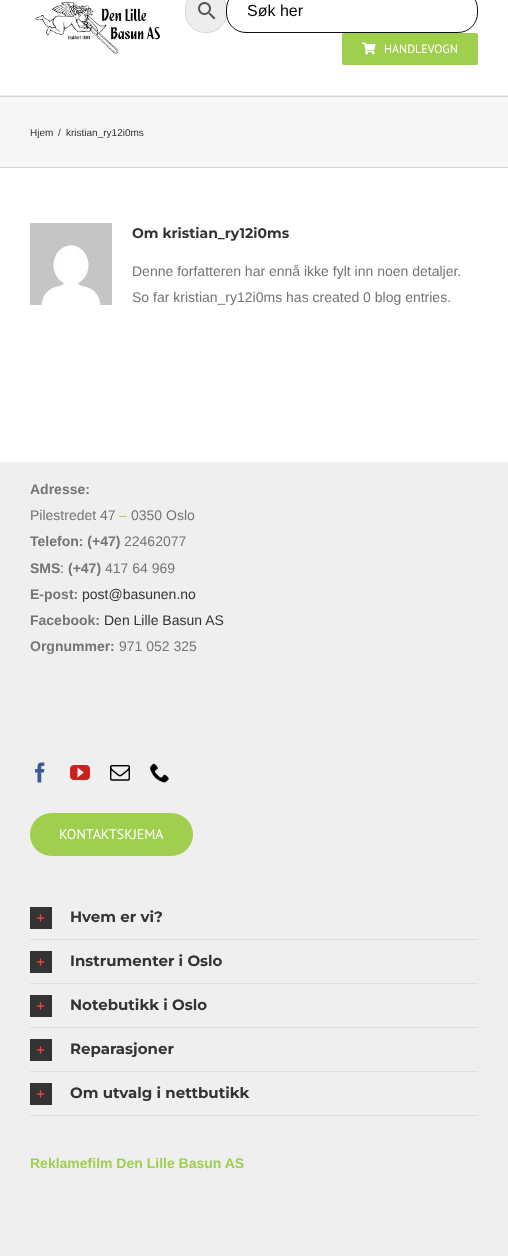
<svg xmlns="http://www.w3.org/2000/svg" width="508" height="1256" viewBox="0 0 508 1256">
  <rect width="100%" height="100%" fill="#fff"/>
  <path d="M0 95h508v1H0z" fill="#ededed"/>
  <image x="35" y="2" width="125" height="52" href="img/1.png"/>
  <rect x="185.5" y="-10.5" width="41" height="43" rx="19.5" fill="#ededed" stroke="#d8d8d8"/>
  <image x="198" y="2" width="18" height="18" href="img/2.png"/>
  <rect x="226.5" y="-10.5" width="251" height="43" rx="19.5" fill="#fff" stroke="#111"/>
  <rect x="342" y="33" width="136" height="32" rx="2" fill="#a0ce4e"/>
  <image x="362" y="42" width="14" height="13" href="img/3.png"/>
  <path d="M0 97h508v70H0z" fill="#f6f6f6"/>
  <path d="M0 96h508v1H0z" fill="#d2d3d4"/>
  <path d="M0 167h508v1H0z" fill="#d2d3d4"/>
  <image x="30" y="223" width="82" height="82" href="img/4.png"/>
  <path d="M0 462h508v794H0z" fill="#efefef"/>
  <image x="35" y="762" width="10" height="21" href="img/5.png"/>
  <image x="70" y="765" width="20" height="15" href="img/6.png"/>
  <image x="110" y="765" width="20" height="16" href="img/7.png"/>
  <image x="150" y="763" width="19" height="20" href="img/8.png"/>
  <rect x="30" y="813" width="163" height="43" rx="21.5" fill="#a0ce4e"/>
  <path d="M30 939h448v1H30z" fill="#e0dede"/>
  <path d="M30 907h22v22H30z" fill="#333"/>
  <image x="36" y="914" width="9" height="8" href="img/9.png"/>
  <path d="M30 983h448v1H30z" fill="#e0dede"/>
  <path d="M30 951h22v22H30z" fill="#333"/>
  <image x="36" y="958" width="9" height="8" href="img/9.png"/>
  <path d="M30 1027h448v1H30z" fill="#e0dede"/>
  <path d="M30 995h22v22H30z" fill="#333"/>
  <image x="36" y="1002" width="9" height="8" href="img/9.png"/>
  <path d="M30 1071h448v1H30z" fill="#e0dede"/>
  <path d="M30 1039h22v22H30z" fill="#333"/>
  <image x="36" y="1046" width="9" height="8" href="img/9.png"/>
  <path d="M30 1115h448v1H30z" fill="#e0dede"/>
  <path d="M30 1083h22v22H30z" fill="#333"/>
  <image x="36" y="1090" width="9" height="8" href="img/9.png"/>
  <text x="247" y="16" font-family="Liberation Sans" font-size="16" fill="#000">Søk her</text>
  <text x="384" y="53" font-family="PT Sans" font-size="12" fill="#fff">HANDLEVOGN</text>
  <g font-family="Liberation Sans" font-size="10" fill="#333">
    <text x="30" y="136">Hjem</text>
    <text x="58" y="136">/</text>
    <text x="66" y="136">kristian_ry12i0ms</text>
  </g>
  <text x="132" y="238" font-family="Montserrat" font-size="14" font-weight="100" fill="#333">Om kristian_ry12i0ms</text>
  <g font-family="Liberation Sans" font-size="14" fill="#747474">
    <text x="132" y="276">Denne forfatteren har ennå ikke fylt inn noen detaljer.</text>
    <text x="132" y="302">So far kristian_ry12i0ms has created 0 blog entries.</text>
  </g>
  <text x="30" y="494" font-family="Liberation Sans" font-size="14" font-weight="bold" fill="#747474">Adresse:</text>
  <text x="30" y="520" font-family="Liberation Sans" font-size="14" fill="#747474">Pilestredet 47</text>
  <text x="119" y="520" font-family="Liberation Sans" font-size="14" fill="#a0ce4e">–</text>
  <text x="131" y="520" font-family="Liberation Sans" font-size="14" fill="#747474">0350 Oslo</text>
  <text x="30" y="546" font-family="Liberation Sans" font-size="14" font-weight="bold" fill="#747474">Telefon: (+47)</text>
  <text x="124" y="546" font-family="Liberation Sans" font-size="14" fill="#747474">22462077</text>
  <text x="30" y="573" font-family="Liberation Sans" font-size="14" font-weight="bold" fill="#747474">SMS</text>
  <text x="60" y="573" font-family="Liberation Sans" font-size="14" fill="#747474">:</text>
  <text x="68" y="573" font-family="Liberation Sans" font-size="14" font-weight="bold" fill="#747474">(+47)</text>
  <text x="105" y="573" font-family="Liberation Sans" font-size="14" fill="#747474">417 64 969</text>
  <text x="30" y="599" font-family="Liberation Sans" font-size="14" font-weight="bold" fill="#747474">E-post:</text>
  <text x="82" y="599" font-family="Liberation Sans" font-size="14" fill="#333">post@basunen.no</text>
  <text x="30" y="625" font-family="Liberation Sans" font-size="14" font-weight="bold" fill="#747474">Facebook:</text>
  <text x="104" y="625" font-family="Liberation Sans" font-size="14" fill="#333">Den Lille Basun AS</text>
  <text x="30" y="651" font-family="Liberation Sans" font-size="14" font-weight="bold" fill="#747474">Orgnummer:</text>
  <text x="119" y="651" font-family="Liberation Sans" font-size="14" fill="#747474">971 052 325</text>
  <text x="59" y="839" font-family="PT Sans" font-size="14" fill="#fff">KONTAKTSKJEMA</text>
  <g font-family="Montserrat" font-size="15" font-weight="100" fill="#333">
    <text x="70" y="922">Hvem er vi?</text>
    <text x="70" y="966">Instrumenter i Oslo</text>
    <text x="70" y="1010">Notebutikk i Oslo</text>
    <text x="70" y="1054">Reparasjoner</text>
    <text x="70" y="1098">Om utvalg i nettbutikk</text>
  </g>
  <text x="30" y="1168" font-family="Liberation Sans" font-size="14" font-weight="bold" fill="#a0ce4e">Reklamefilm Den Lille Basun AS</text>
</svg>
